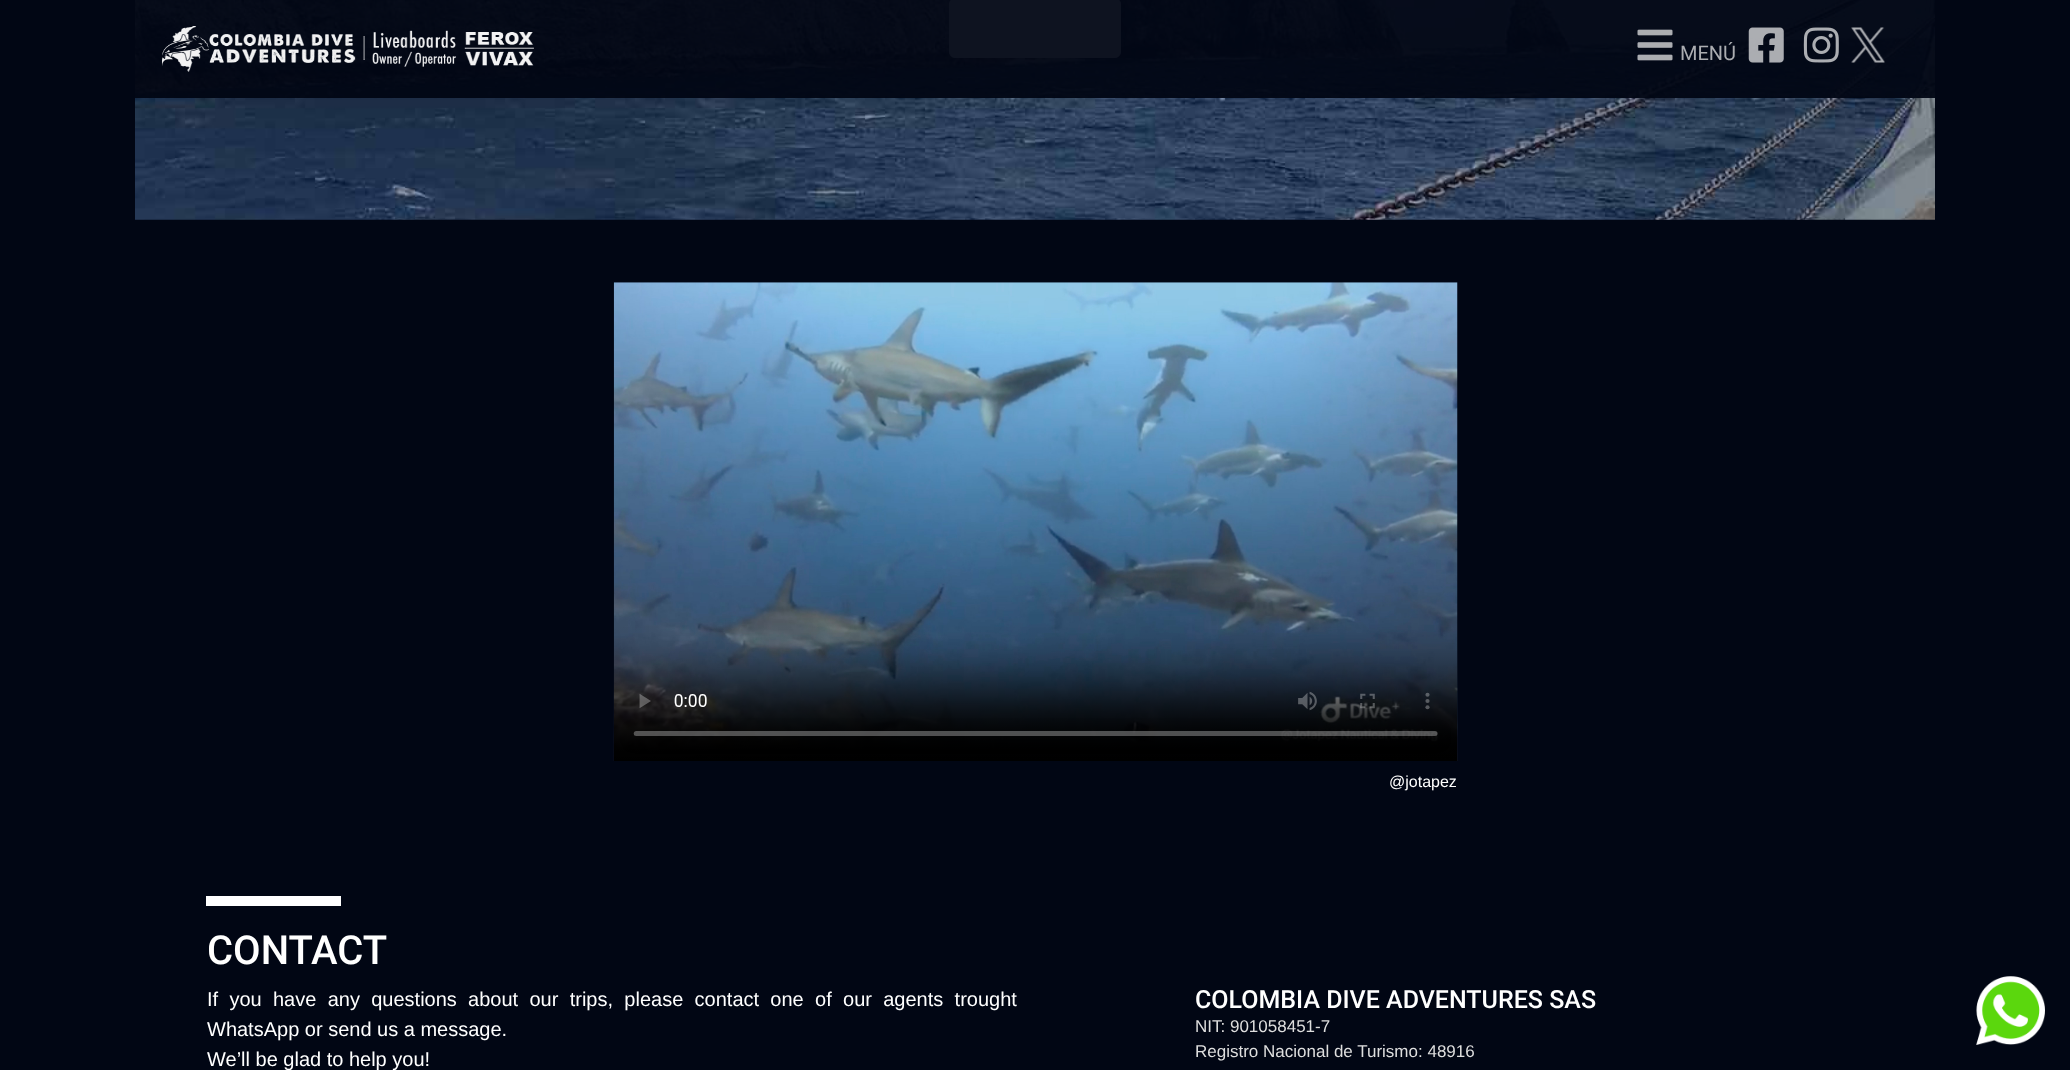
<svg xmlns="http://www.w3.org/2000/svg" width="2070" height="1070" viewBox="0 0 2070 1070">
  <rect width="100%" height="100%" fill="#010614"/>
  <image x="135" y="0" width="1800" height="220" href="img/1.png"/>
  <rect x="949.5" y="-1.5" width="171" height="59" rx="5.5" fill="#f8f9fa" stroke="#f8f9fa"/>
  <path d="M135 0h1800v98H135z" fill="#010614f2"/>
  <image x="162" y="26" width="372" height="46" href="img/2.png"/>
  <image x="1637" y="29" width="36" height="32" href="img/3.png"/>
  <image x="1748" y="27" width="36" height="36" href="img/4.png"/>
  <image x="1803" y="27" width="36" height="36" href="img/5.png"/>
  <image x="1851" y="27" width="34" height="36" href="img/6.png"/>
  <image x="613" y="282" width="845" height="479" href="img/7.png"/>
  <path d="M206 896h135v10H206z" fill="#fff"/>
  <image x="1976" y="976" width="69" height="69" href="img/8.png"/>
  <text x="1680" y="60" font-family="Roboto" font-size="20" fill="#abadb1">MENÚ</text>
  <text x="1389" y="787" font-family="Liberation Sans" font-size="16" fill="#fff">@jotapez</text>
  <text x="207" y="964" font-family="Roboto" font-size="40" font-weight="500" fill="#fff">CONTACT</text>
  <g font-family="Liberation Sans" font-size="20" fill="#fff">
    <text x="207" y="1006" word-spacing="5.75">If you have any questions about our trips, please contact one of our agents trought</text>
    <text x="207" y="1036">WhatsApp or send us a message.</text>
    <text x="207" y="1066">We’ll be glad to help you!</text>
  </g>
  <text x="1195" y="1008" font-family="Roboto" font-size="25" font-weight="500" fill="#fff">COLOMBIA DIVE ADVENTURES SAS</text>
  <g font-family="Liberation Sans" font-size="17" fill="#dedede">
    <text x="1195" y="1032">NIT: 901058451-7</text>
    <text x="1195" y="1057">Registro Nacional de Turismo: 48916</text>
  </g>
</svg>
